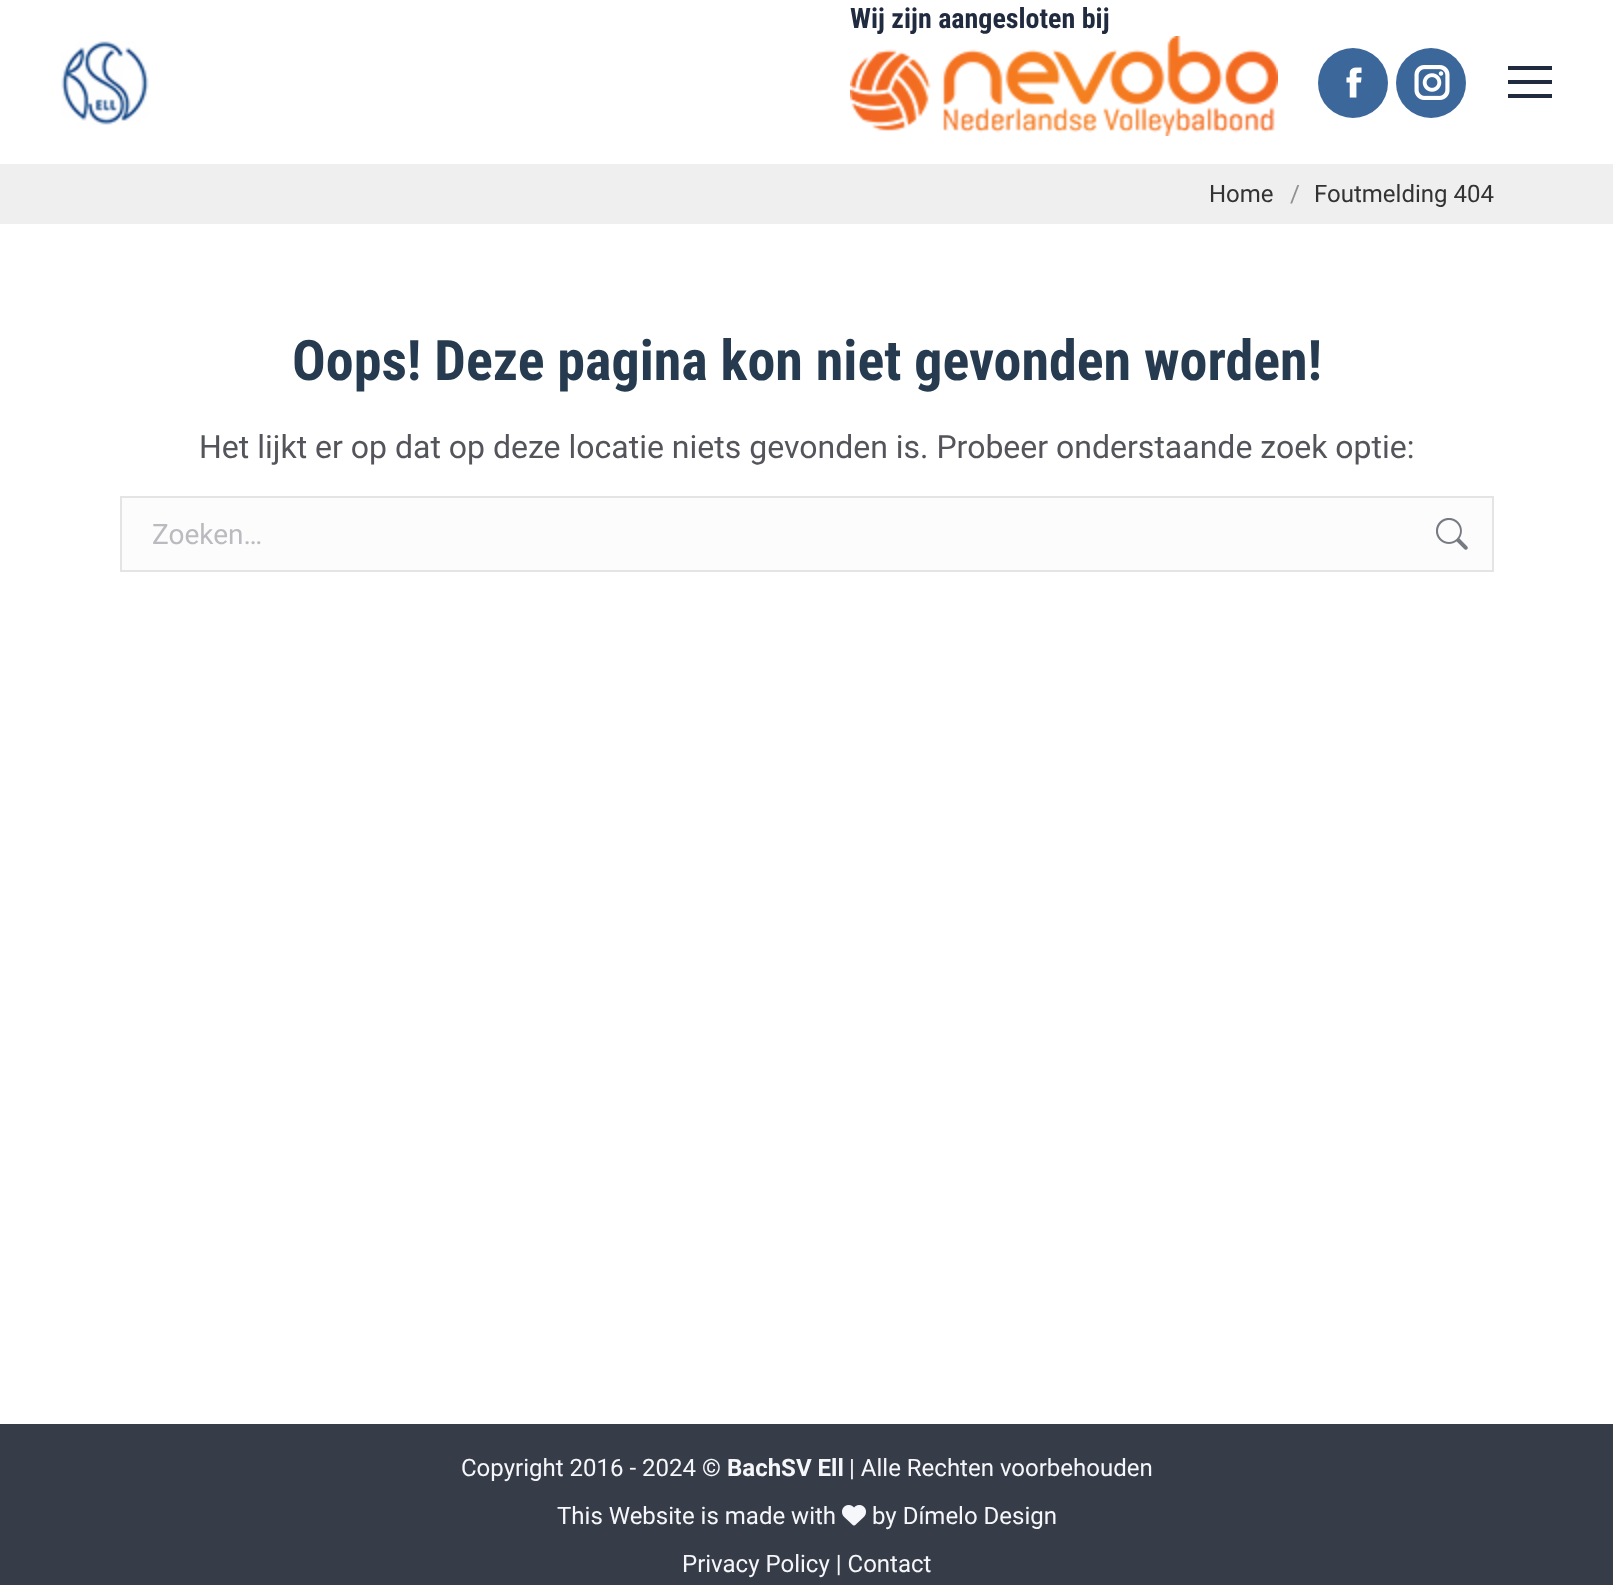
<svg xmlns="http://www.w3.org/2000/svg" width="1613" height="1585" viewBox="0 0 1613 1585">
  <rect width="100%" height="100%" fill="#fff"/>
  <image x="850" y="36" width="428" height="100" href="img/1.png"/>
  <circle cx="1353" cy="83" r="35" fill="#3c679b"/>
  <image x="1346" y="67" width="16" height="31" href="img/2.png"/>
  <circle cx="1431" cy="83" r="35" fill="#3c679b"/>
  <image x="1414" y="65" width="36" height="35" href="img/3.png"/>
  <image x="61" y="41" width="88" height="84" href="img/4.png"/>
  <path d="M1508 66h44v4H1508z" fill="#202b40"/>
  <path d="M1508 80h44v4H1508z" fill="#202b40"/>
  <path d="M1508 94h44v4H1508z" fill="#202b40"/>
  <path d="M0 164h1613v60H0z" fill="#efefef"/>
  <path d="M121 497h1372v74H121z" fill="#fcfcfc" stroke="#e4e4e4" stroke-width="2"/>
  <image x="1436" y="518" width="32" height="32" href="img/5.png"/>
  <path d="M0 1424h1613v161H0z" fill="#363c48"/>
  <image x="842" y="1505" width="24" height="21" href="img/6.png"/>
  <text x="850" y="28" font-family="Roboto Condensed" font-size="28" font-weight="bold" fill="#202b40">Wij zijn aangesloten bij</text>
  <text x="1209" y="202" font-family="Roboto" font-size="24" fill="#333">Home</text>
  <text x="1290" y="202" font-family="Roboto" font-size="24" fill="#919191">/</text>
  <text x="1314" y="202" font-family="Roboto" font-size="24" fill="#333">Foutmelding 404</text>
  <text x="292" y="380" font-family="Roboto Condensed" font-size="56" font-weight="bold" fill="#263b4f">Oops! Deze pagina kon niet gevonden worden!</text>
  <text x="199" y="458" font-family="Roboto" font-size="32" fill="#53555b">Het lijkt er op dat op deze locatie niets gevonden is. Probeer onderstaande zoek optie:</text>
  <text x="152" y="544" font-family="Roboto" font-size="28" fill="#b9bbbf">Zoeken…</text>
  <text x="461" y="1476" font-family="Roboto" font-size="24" fill="#f6f7fa">Copyright 2016 - 2024 ©</text>
  <text x="727" y="1476" font-family="Roboto" font-size="24" font-weight="bold" fill="#f6f7fa">BachSV Ell</text>
  <g font-family="Roboto" font-size="24" fill="#f6f7fa">
    <text x="849" y="1476">| Alle Rechten voorbehouden</text>
    <text x="557" y="1524">This Website is made with</text>
    <text x="872" y="1524">by Dímelo Design</text>
    <text x="682" y="1572">Privacy Policy | Contact</text>
  </g>
</svg>
